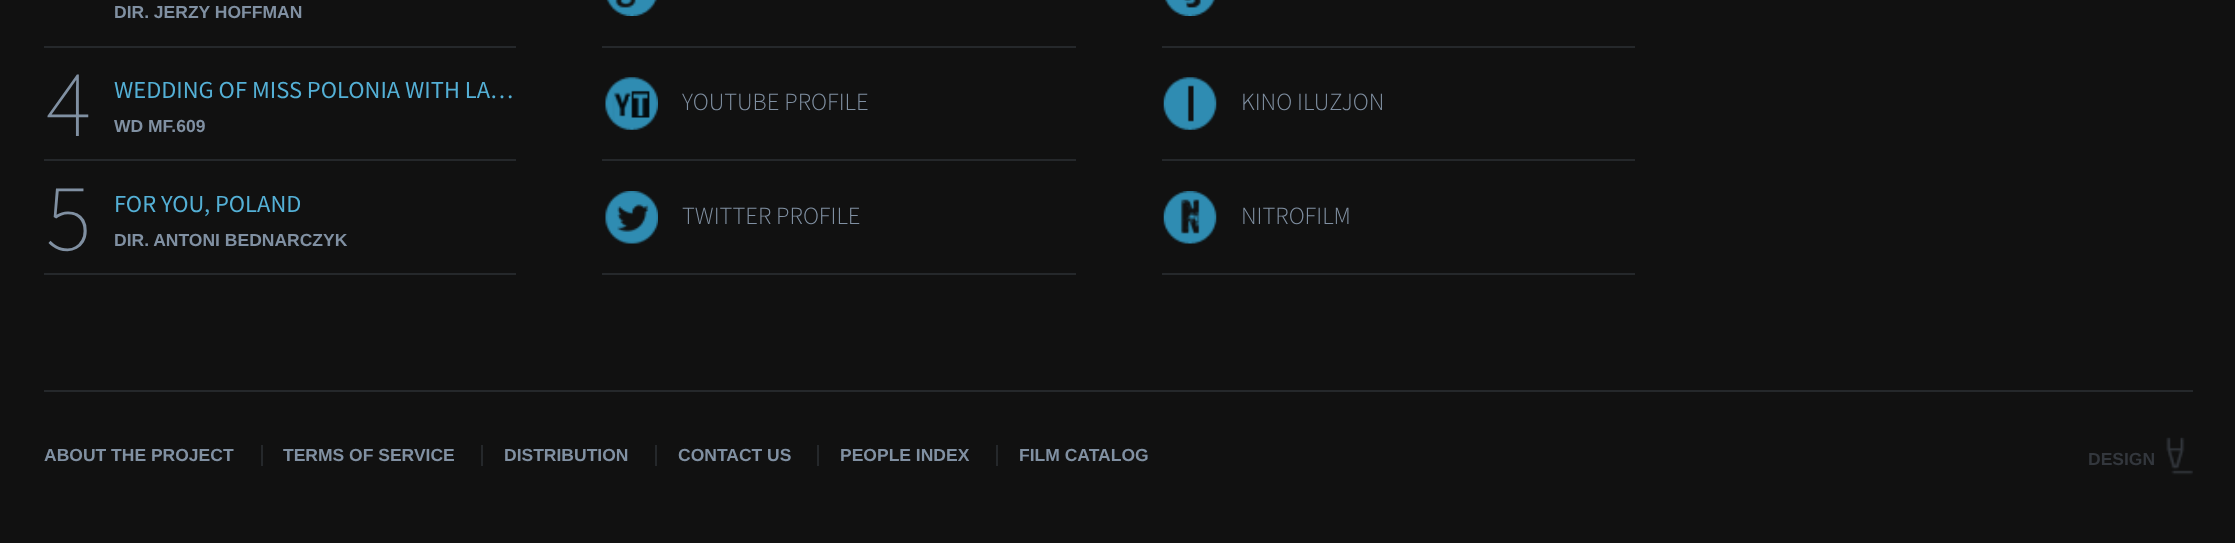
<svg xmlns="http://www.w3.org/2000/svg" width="2235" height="543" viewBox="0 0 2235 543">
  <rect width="100%" height="100%" fill="#111"/>
  <path d="M44 46h472v2H44z" fill="#25282b"/>
  <path d="M44 159h472v2H44z" fill="#25282b"/>
  <path d="M44 273h472v2H44z" fill="#25282b"/>
  <image x="606" y="0" width="51" height="16" href="img/1.png"/>
  <path d="M602 46h474v2H602z" fill="#25282b"/>
  <image x="605" y="77" width="53" height="53" href="img/2.png"/>
  <path d="M602 159h474v2H602z" fill="#25282b"/>
  <path d="M602 273h474v2H602z" fill="#25282b"/>
  <image x="605" y="191" width="53" height="53" href="img/3.png"/>
  <image x="1165" y="0" width="50" height="16" href="img/4.png"/>
  <path d="M1162 46h473v2H1162z" fill="#25282b"/>
  <image x="1163" y="77" width="54" height="53" href="img/5.png"/>
  <path d="M1162 159h473v2H1162z" fill="#25282b"/>
  <path d="M1162 273h473v2H1162z" fill="#25282b"/>
  <image x="1163" y="191" width="54" height="53" href="img/6.png"/>
  <path d="M44 390h2149v2H44z" fill="#25282b"/>
  <path d="M261 445h2v21H261z" fill="#25282b"/>
  <path d="M481 445h2v21H481z" fill="#25282b"/>
  <path d="M655 445h2v21H655z" fill="#25282b"/>
  <path d="M817 445h2v21H817z" fill="#25282b"/>
  <path d="M996 445h2v21H996z" fill="#25282b"/>
  <image x="2166" y="437" width="27" height="38" href="img/7.png"/>
  <text x="114" y="18" font-family="Liberation Sans" font-size="17.5" font-weight="bold" fill="#8090a2">DIR. JERZY HOFFMAN</text>
  <text x="46" y="136" font-family="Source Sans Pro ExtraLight" font-size="96" font-weight="200" fill="#8090a2">4</text>
  <text x="114" y="98" font-family="Source Sans Pro" font-size="24.5" fill="#54b0d6">WEDDING OF MISS POLONIA WITH LA…</text>
  <text x="114" y="132" font-family="Liberation Sans" font-size="17.5" font-weight="bold" fill="#8090a2">WD MF.609</text>
  <text x="46" y="250" font-family="Source Sans Pro ExtraLight" font-size="96" font-weight="200" fill="#8090a2">5</text>
  <text x="114" y="212" font-family="Source Sans Pro" font-size="24.5" fill="#54b0d6">FOR YOU, POLAND</text>
  <text x="114" y="246" font-family="Liberation Sans" font-size="17.5" font-weight="bold" fill="#8090a2">DIR. ANTONI BEDNARCZYK</text>
  <g font-family="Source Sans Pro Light" font-size="24.5" font-weight="300" fill="#8090a2">
    <text x="682" y="110">YOUTUBE PROFILE</text>
    <text x="682" y="224">TWITTER PROFILE</text>
    <text x="1241" y="110">KINO ILUZJON</text>
    <text x="1241" y="224">NITROFILM</text>
  </g>
  <g font-family="Liberation Sans" font-size="17.5" font-weight="bold" fill="#8090a2">
    <text x="44" y="461">ABOUT THE PROJECT</text>
    <text x="283" y="461">TERMS OF SERVICE</text>
    <text x="504" y="461">DISTRIBUTION</text>
    <text x="678" y="461">CONTACT US</text>
    <text x="840" y="461">PEOPLE INDEX</text>
    <text x="1019" y="461">FILM CATALOG</text>
  </g>
  <text x="2088" y="465" font-family="Liberation Sans" font-size="17.5" font-weight="bold" fill="#33373d">DESIGN</text>
</svg>
